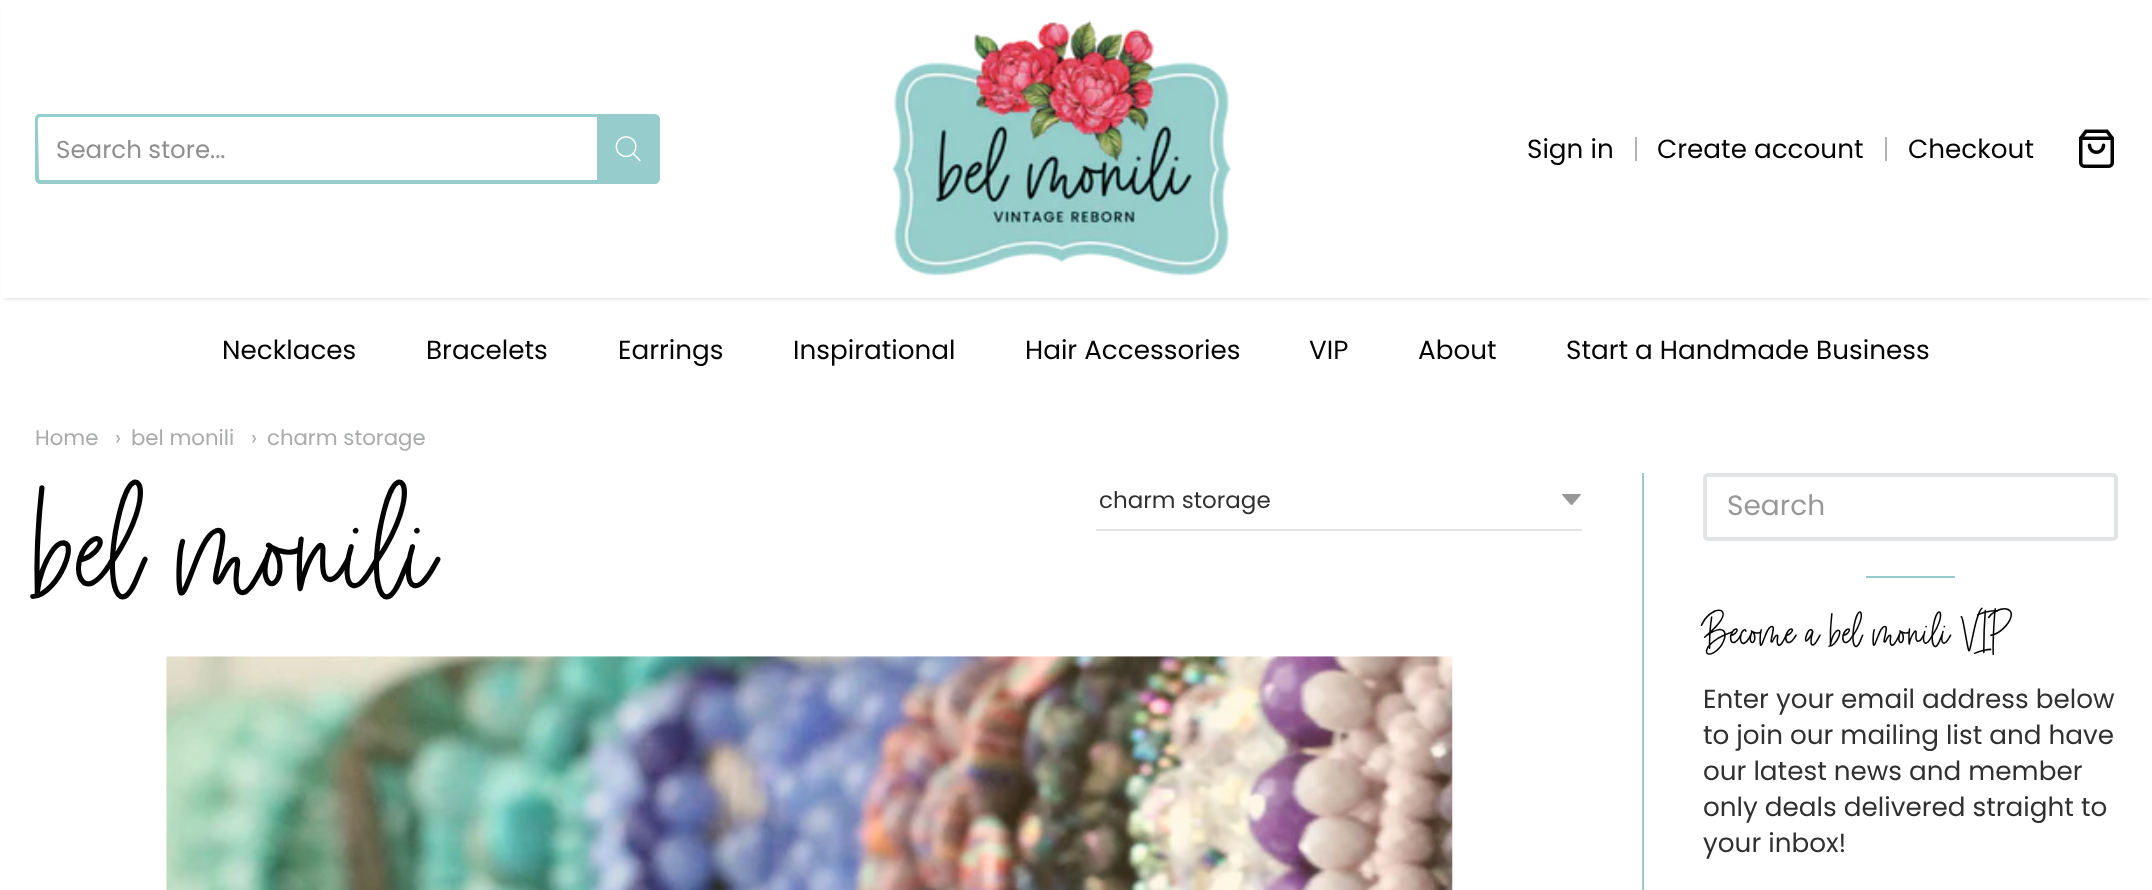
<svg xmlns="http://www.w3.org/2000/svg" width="2152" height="890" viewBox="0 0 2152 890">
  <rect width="100%" height="100%" fill="#fff"/>
  <path d="M4 7h2145v291H4z" fill="#00000033" filter="blur(2px)"/>
  <path d="M1 4h2151v294H1z" fill="#fff"/>
  <path d="M40 114H597V184H40C37 184 35 181 35 178V119C35 116 37 114 40 114ZM40 117H597V180H40L39 179L38 129C38 125 37 117 40 117Z" fill="#96cdcc" fill-rule="evenodd"/>
  <path d="M599 116H655C656.5 116 658 117.5 658 119V179C658 180.5 656.5 182 655 182H599Z" fill="#96cdcc" stroke="#96cdcc" stroke-width="4"/>
  <image x="615" y="136" width="26" height="26" href="img/1.png"/>
  <image x="892" y="20" width="339" height="256" href="img/2.png"/>
  <path d="M1635 137h2v24H1635z" fill="#b3b3b3"/>
  <path d="M1885 137h2v24H1885z" fill="#b3b3b3"/>
  <image x="2079" y="129" width="35" height="39" href="img/3.png"/>
  <image x="1561" y="494" width="20" height="11" href="img/4.png"/>
  <path d="M1096 529h486v2H1096z" fill="#e1e3e4"/>
  <image x="166" y="656" width="1287" height="234" href="img/5.png"/>
  <path d="M1642 473h2v417H1642z" fill="#96cdcc"/>
  <rect x="1705" y="475" width="411" height="64" rx="3" fill="none" stroke="#e1e3e4" stroke-width="4"/>
  <path d="M1866 576h89v2H1866z" fill="#96cdcc"/>
  <text x="56" y="158" font-family="Poppins" font-size="24.5" fill="#8f8f8f">Search store...</text>
  <g font-family="Poppins" font-size="26.25" fill="#030303">
    <text x="1527" y="158">Sign in</text>
    <text x="1657" y="158">Create account</text>
    <text x="1908" y="158">Checkout</text>
    <text x="222" y="359">Necklaces</text>
    <text x="426" y="359">Bracelets</text>
    <text x="618" y="359">Earrings</text>
    <text x="793" y="359">Inspirational</text>
    <text x="1025" y="359">Hair Accessories</text>
    <text x="1309" y="359">VIP</text>
    <text x="1418" y="359">About</text>
    <text x="1566" y="359">Start a Handmade Business</text>
  </g>
  <g font-family="Poppins" font-size="21.25" fill="#a9aaaa">
    <text x="35" y="445">Home</text>
    <text x="115" y="445">›</text>
    <text x="131" y="445">bel monili</text>
    <text x="251" y="445">›</text>
    <text x="267" y="445">charm storage</text>
  </g>
  <text x="35" y="582" font-family="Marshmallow" font-size="122.5" fill="#030303">bel monili</text>
  <text x="1099" y="508" font-family="Poppins" font-size="23" fill="#303030">charm storage</text>
  <text x="1727" y="515" font-family="Poppins" font-size="28" fill="#989898">Search</text>
  <text x="1703" y="642" font-family="Marshmallow" font-size="36.75" fill="#030303">Become a bel monili VIP</text>
  <g font-family="Poppins" font-size="26.25" fill="#303030">
    <text x="1703" y="708">Enter your email address below</text>
    <text x="1703" y="744">to join our mailing list and have</text>
    <text x="1703" y="780">our latest news and member</text>
    <text x="1703" y="816">only deals delivered straight to</text>
    <text x="1703" y="852">your inbox!</text>
  </g>
</svg>
